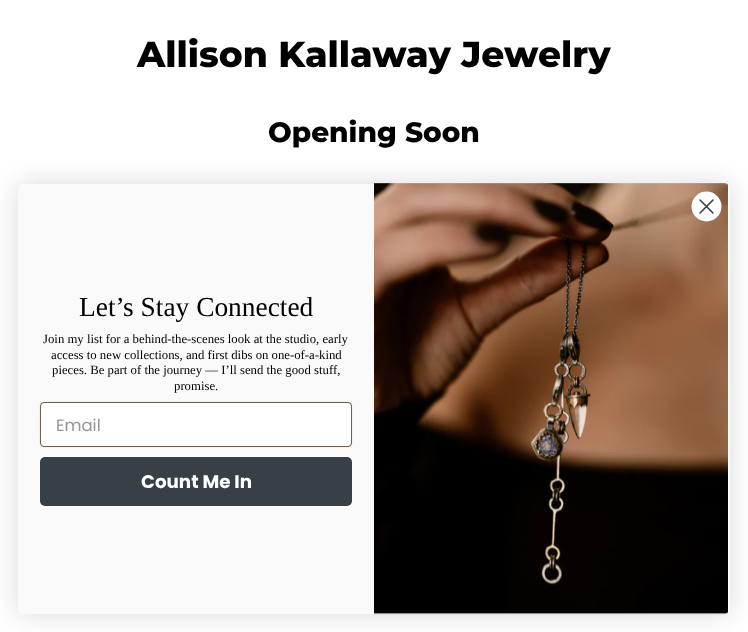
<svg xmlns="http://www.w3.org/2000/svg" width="748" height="632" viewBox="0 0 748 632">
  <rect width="100%" height="100%" fill="#fff"/>
  <rect x="18" y="184" width="712" height="430" rx="5" fill="#00000026" filter="blur(13.5px)"/>
  <rect x="18" y="184" width="712" height="430" rx="5" fill="#fafafa"/>
  <image x="374" y="183" width="355" height="432" href="img/1.png"/>
  <circle cx="706.5" cy="206.5" r="15" fill="#fff"/>
  <path d="M700 200L713 213M700 213L713 200Z" fill="none" stroke="#373f47" stroke-width="1.6" stroke-linecap="round" stroke-linejoin="round"/>
  <rect x="40.45" y="402.45" width="311.1" height="44.1" rx="3.55" fill="#fff" stroke="#54462f" stroke-width="0.9"/>
  <rect x="40" y="457" width="312" height="49" rx="5" fill="#373f47"/>
  <text x="137" y="67" font-family="Montserrat" font-size="36" font-weight="800" fill="#000">Allison Kallaway Jewelry</text>
  <text x="268" y="142" font-family="Montserrat" font-size="28" font-weight="800" fill="#000">Opening Soon</text>
  <text x="79" y="316" font-family="Liberation Serif" font-size="27.4" fill="#000">Let’s Stay Connected</text>
  <g font-family="Liberation Serif" font-size="12.75" fill="#000">
    <text x="43" y="343">Join my list for a behind-the-scenes look at the studio, early</text>
    <text x="51" y="359">access to new collections, and first dibs on one-of-a-kind</text>
    <text x="52" y="374">pieces. Be part of the journey — I’ll send the good stuff,</text>
    <text x="174" y="390">promise.</text>
  </g>
  <text x="56" y="431" font-family="Poppins" font-size="16.5" fill="#949596">Email</text>
  <text x="141" y="488" font-family="Poppins" font-size="18.25" font-weight="bold" fill="#fff">Count Me In</text>
</svg>
